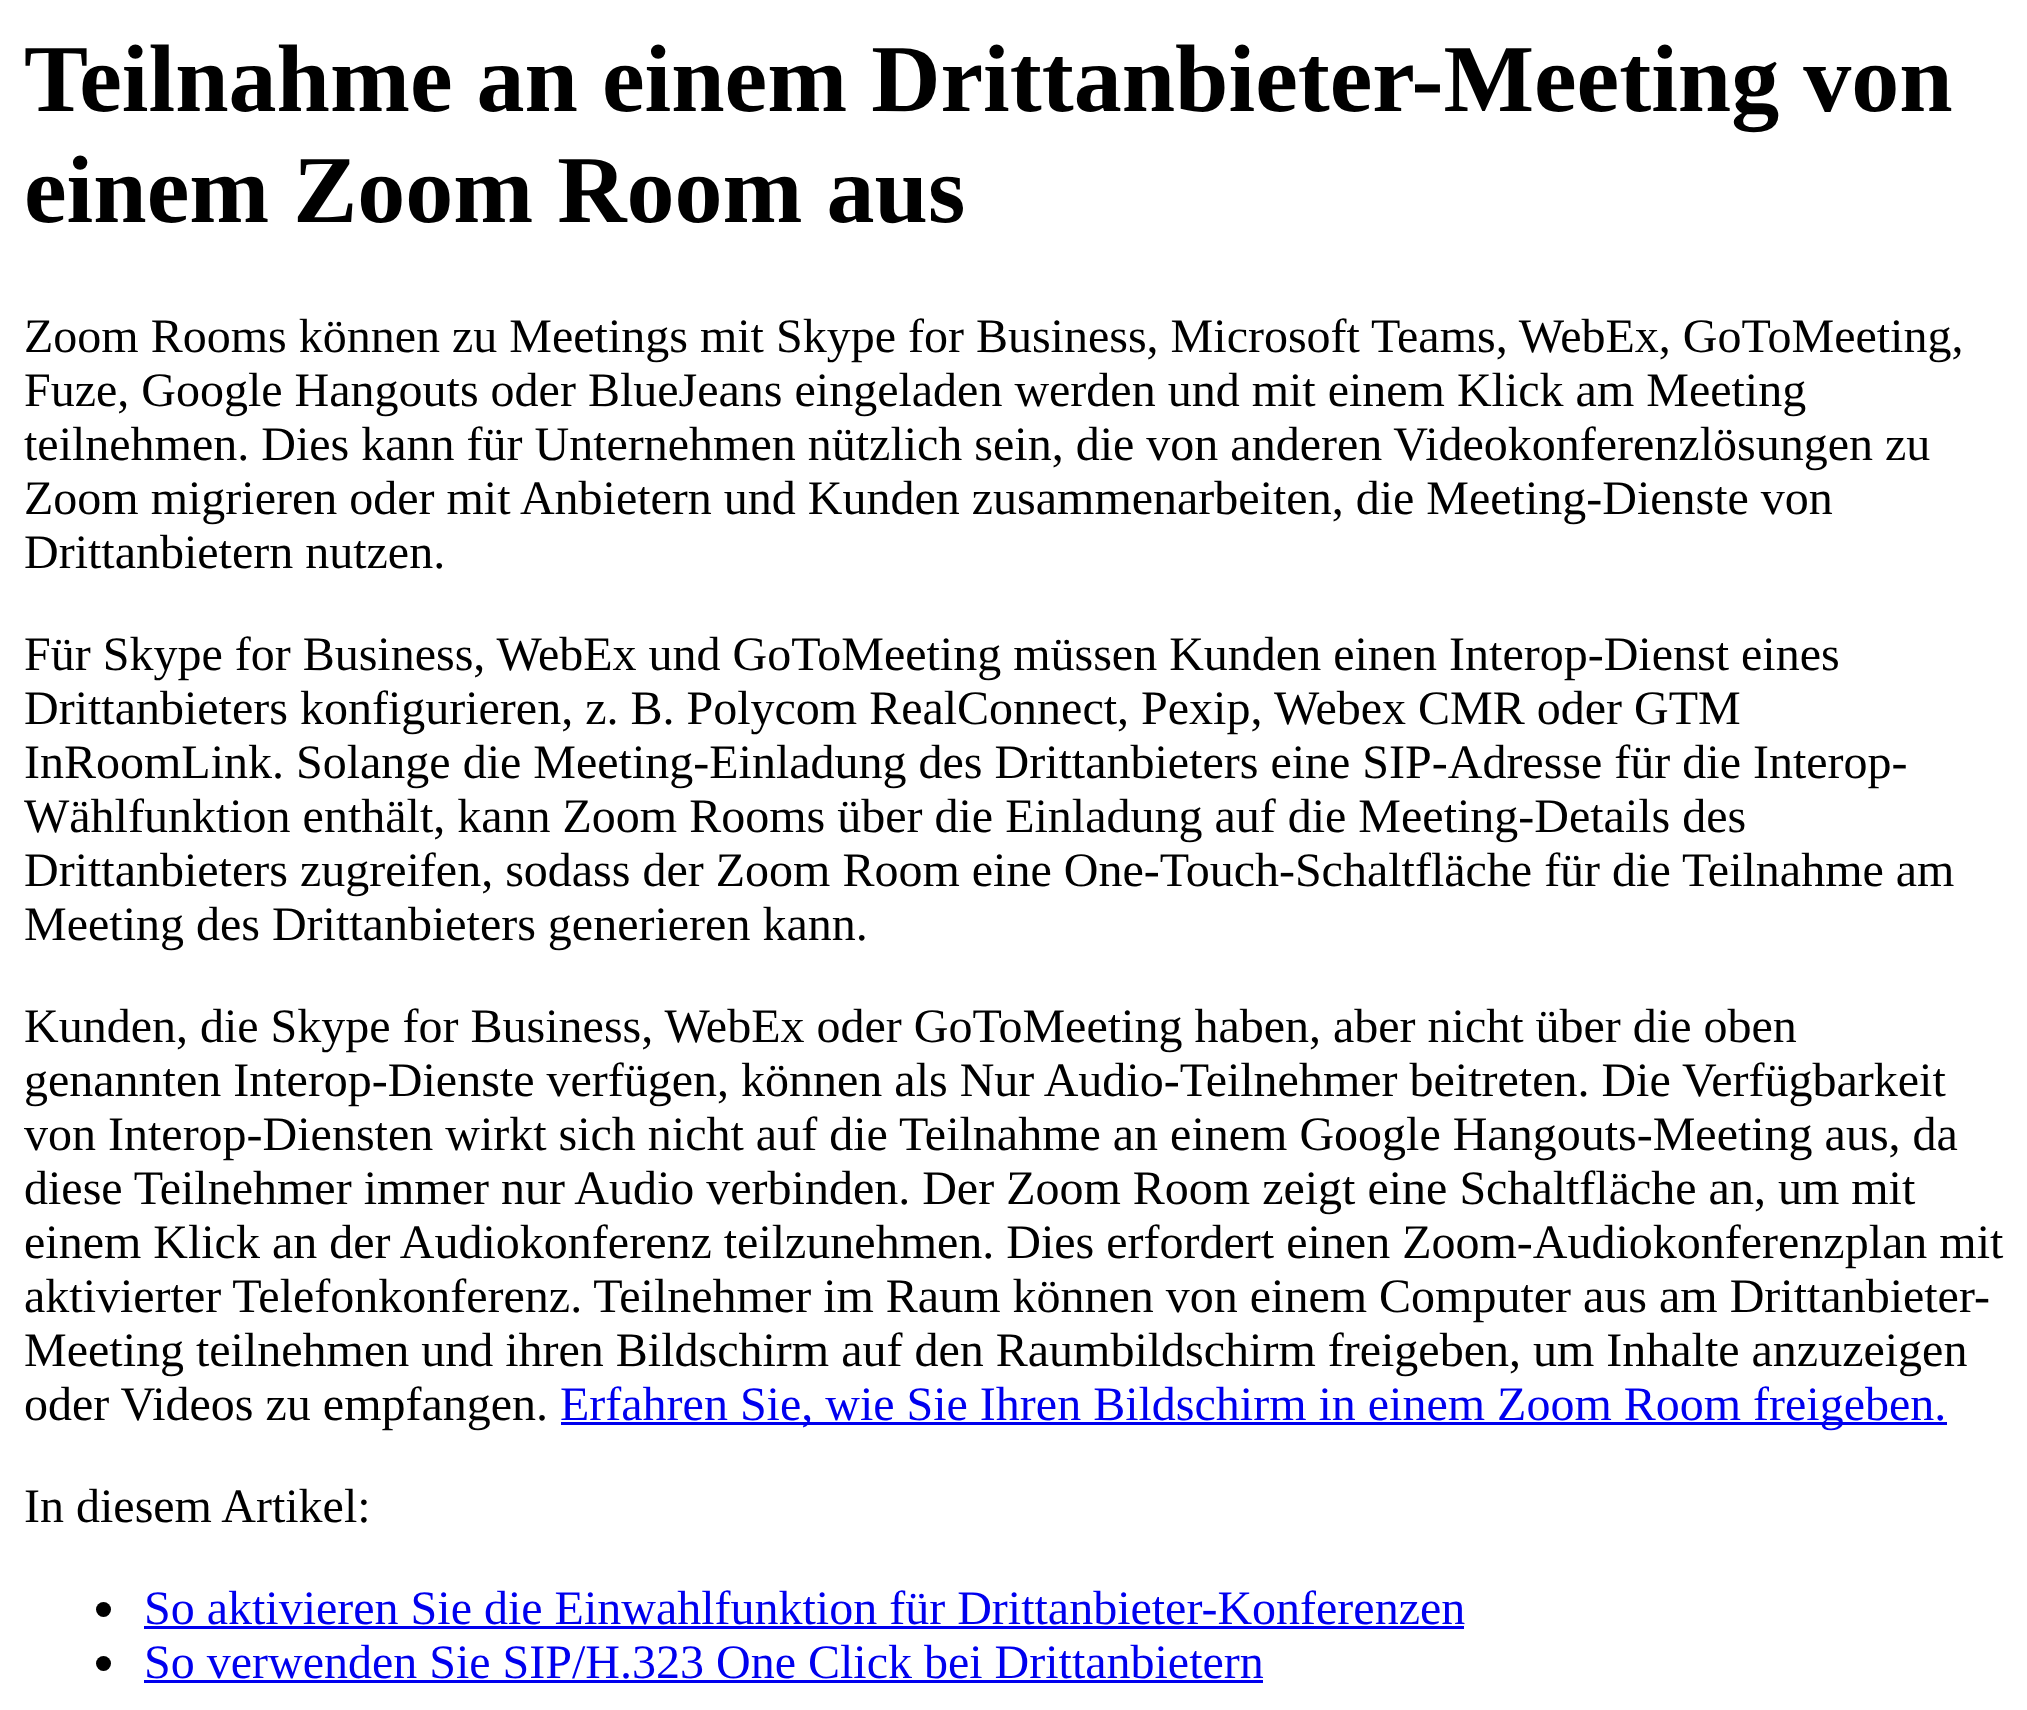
<svg xmlns="http://www.w3.org/2000/svg" width="2027" height="1710" viewBox="0 0 2027 1710">
  <rect width="100%" height="100%" fill="#fff"/>
  <path d="M561 1422h1386v3H561z" fill="#00e"/>
  <circle cx="103.5" cy="1609.5" r="7.5" fill="#000"/>
  <path d="M144 1626h1320v3H144z" fill="#00e"/>
  <circle cx="103.5" cy="1663.5" r="7.5" fill="#000"/>
  <path d="M144 1680h1119v3H144z" fill="#00e"/>
  <g font-family="Liberation Serif" font-size="96" font-weight="bold" fill="#000">
    <text x="24" y="111">Teilnahme an einem Drittanbieter-Meeting von</text>
    <text x="24" y="222">einem Zoom Room aus</text>
  </g>
  <g font-family="Liberation Serif" font-size="48" fill="#000">
    <text x="24" y="352">Zoom Rooms können zu Meetings mit Skype for Business, Microsoft Teams, WebEx, GoToMeeting,</text>
    <text x="24" y="406">Fuze, Google Hangouts oder BlueJeans eingeladen werden und mit einem Klick am Meeting</text>
    <text x="24" y="460">teilnehmen. Dies kann für Unternehmen nützlich sein, die von anderen Videokonferenzlösungen zu</text>
    <text x="24" y="514">Zoom migrieren oder mit Anbietern und Kunden zusammenarbeiten, die Meeting-Dienste von</text>
    <text x="24" y="568">Drittanbietern nutzen.</text>
    <text x="24" y="670">Für Skype for Business, WebEx und GoToMeeting müssen Kunden einen Interop-Dienst eines</text>
    <text x="24" y="724">Drittanbieters konfigurieren, z. B. Polycom RealConnect, Pexip,</text>
    <text x="1274" y="724">Webex CMR oder GTM</text>
    <text x="24" y="778">InRoomLink. Solange die Meeting-Einladung des Drittanbieters eine SIP-Adresse für die Interop-</text>
    <text x="24" y="832">Wählfunktion enthält, kann Zoom Rooms über die Einladung auf die Meeting-Details des</text>
    <text x="24" y="886">Drittanbieters zugreifen, sodass der Zoom Room eine One-Touch-Schaltfläche für die Teilnahme am</text>
    <text x="24" y="940">Meeting des Drittanbieters generieren kann.</text>
    <text x="24" y="1042">Kunden, die Skype for Business, WebEx oder GoToMeeting haben, aber nicht über die oben</text>
    <text x="24" y="1096">genannten Interop-Dienste verfügen, können als Nur Audio-Teilnehmer beitreten. Die Verfügbarkeit</text>
    <text x="24" y="1150">von Interop-Diensten wirkt sich nicht auf die Teilnahme an einem Google Hangouts-Meeting aus, da</text>
    <text x="24" y="1204">diese Teilnehmer immer nur Audio verbinden. Der Zoom Room zeigt eine Schaltfläche an, um mit</text>
    <text x="24" y="1258">einem Klick an der Audiokonferenz teilzunehmen. Dies erfordert einen Zoom-Audiokonferenzplan mit</text>
    <text x="24" y="1312">aktivierter Telefonkonferenz. Teilnehmer im Raum können von einem Computer aus am Drittanbieter-</text>
    <text x="24" y="1366">Meeting teilnehmen und ihren Bildschirm auf den Raumbildschirm freigeben, um Inhalte anzuzeigen</text>
    <text x="24" y="1420">oder Videos zu empfangen.</text>
  </g>
  <text x="560" y="1420" font-family="Liberation Serif" font-size="48" fill="#00e">Erfahren Sie, wie Sie Ihren Bildschirm in einem Zoom Room freigeben.</text>
  <text x="24" y="1522" font-family="Liberation Serif" font-size="48" fill="#000">In diesem Artikel:</text>
  <g font-family="Liberation Serif" font-size="48" fill="#00e">
    <text x="144" y="1624">So aktivieren Sie die Einwahlfunktion für Drittanbieter-Konferenzen</text>
    <text x="144" y="1678">So verwenden Sie SIP/H.323 One Click bei Drittanbietern</text>
  </g>
</svg>
